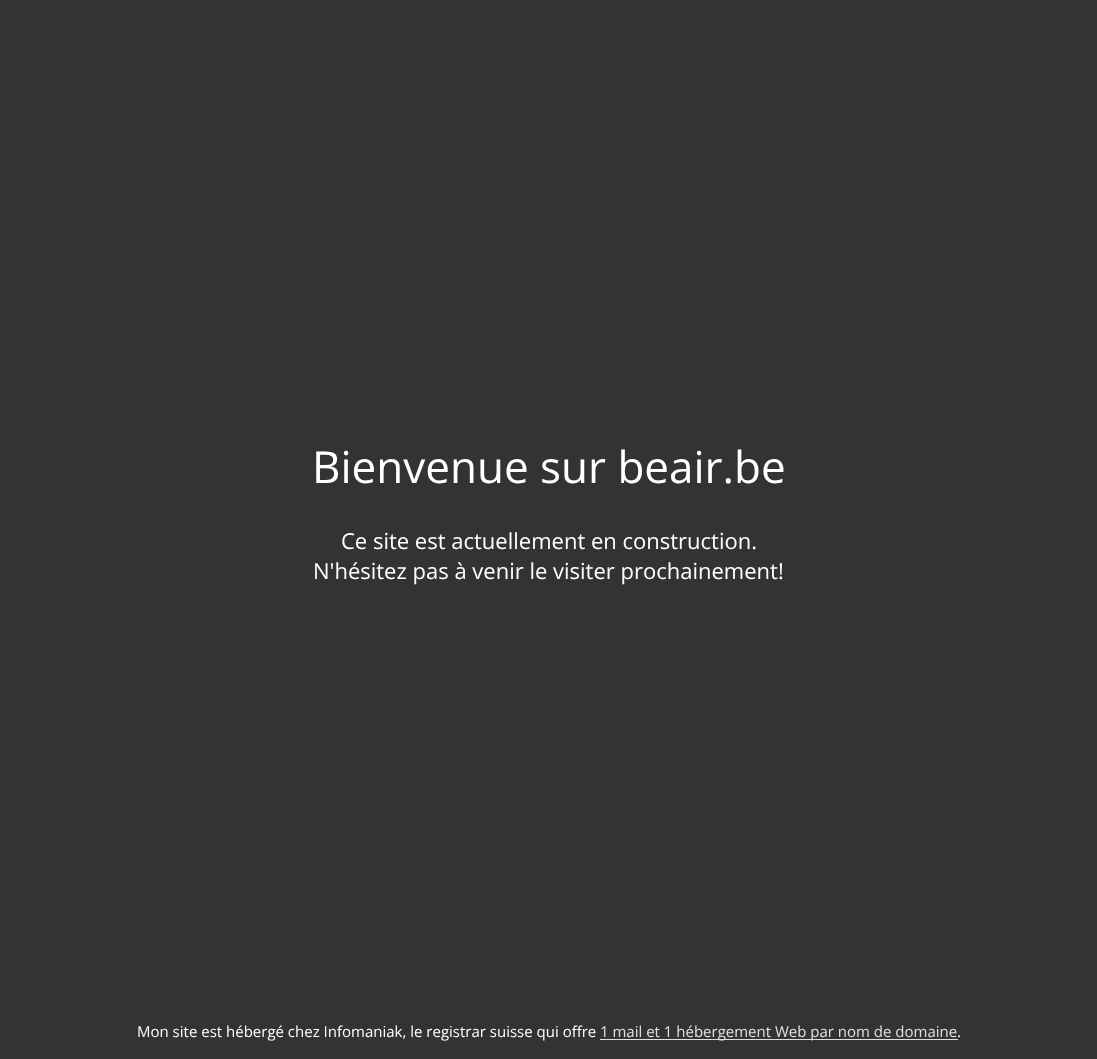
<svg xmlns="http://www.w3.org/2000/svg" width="1097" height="1059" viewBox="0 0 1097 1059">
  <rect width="100%" height="100%" fill="#333"/>
  <path d="M600 1039h358v1H600z" fill="#e0e0e0"/>
  <text x="312" y="483" font-family="Open Sans" font-size="44" fill="#fff">Bienvenue sur beair.be</text>
  <g font-family="Open Sans" font-size="22" fill="#fff">
    <text x="341" y="549">Ce site est actuellement en construction.</text>
    <text x="313" y="579">N'hésitez pas à venir le visiter prochainement!</text>
  </g>
  <text x="137" y="1037" font-family="Open Sans" font-size="15" fill="#fff">Mon site est hébergé chez Infomaniak, le registrar suisse qui offre</text>
  <text x="600" y="1037" font-family="Open Sans" font-size="15" fill="#e0e0e0">1 mail et 1 hébergement Web par nom de domaine</text>
  <text x="957" y="1037" font-family="Open Sans" font-size="15" fill="#fff">.</text>
</svg>
